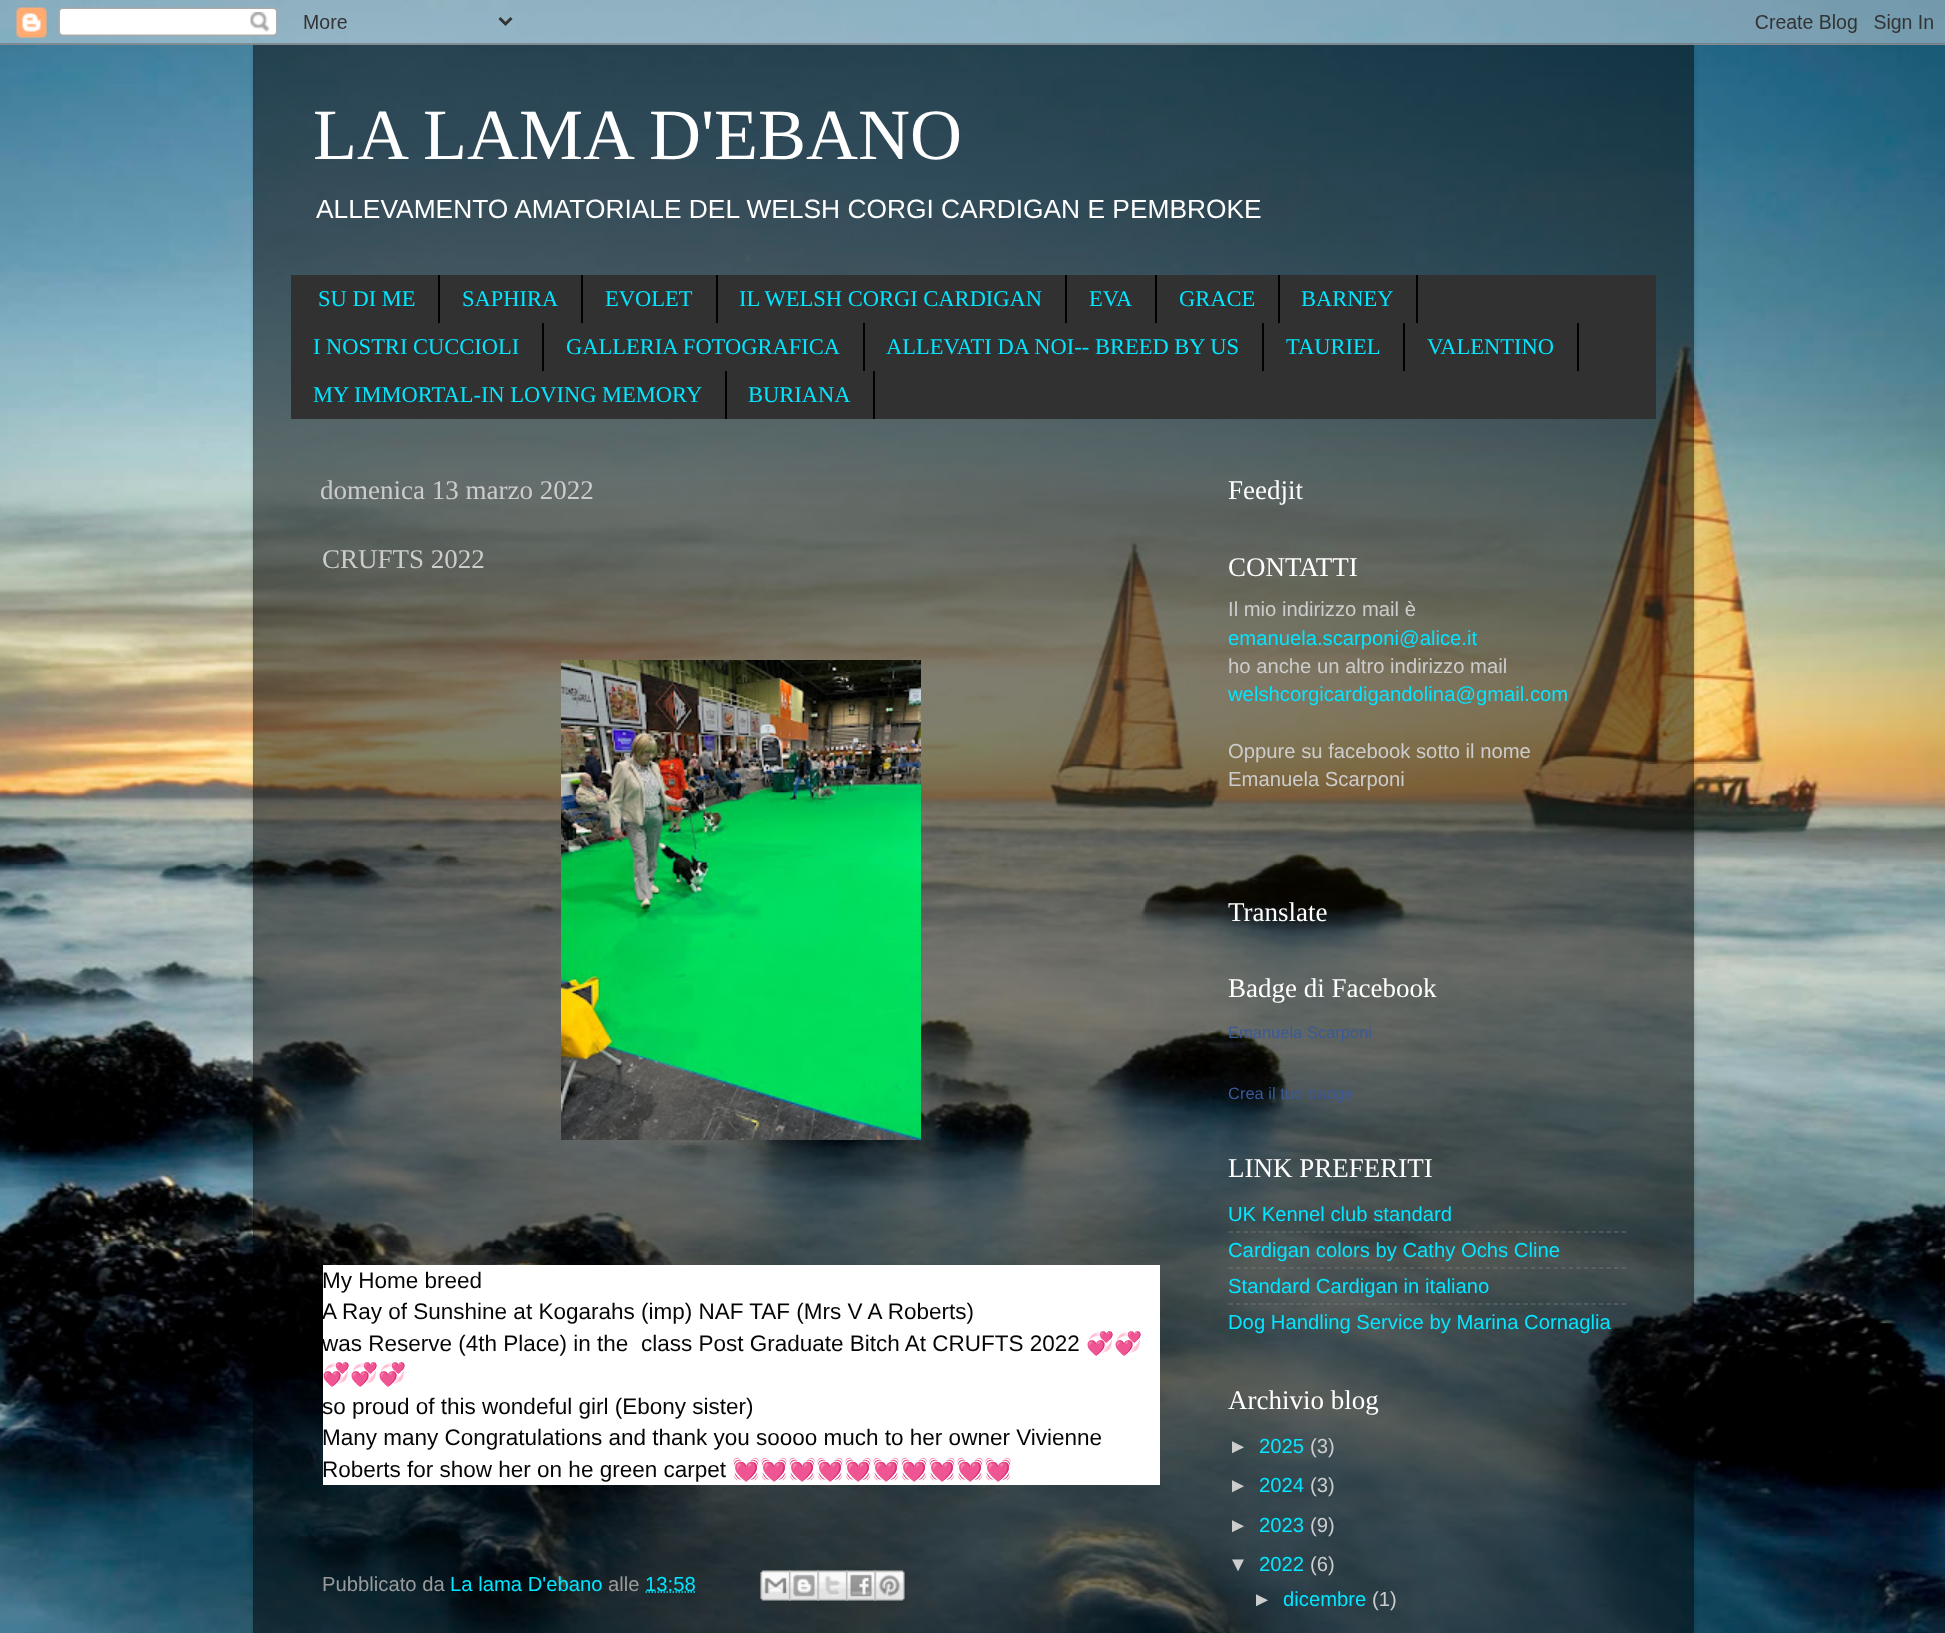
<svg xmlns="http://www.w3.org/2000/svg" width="1945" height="1633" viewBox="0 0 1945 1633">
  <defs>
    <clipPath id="clip1"><path d="M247 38H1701V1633H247ZM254 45H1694V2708H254Z" clip-rule="evenodd"/></clipPath>
  </defs>
  <rect width="100%" height="100%" fill="#fff"/>
  <image x="0" y="0" width="1945" height="1633" href="img/1.png"/>
  <g clip-path="url(#clip1)">
    <path d="M254 45h1440v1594H254z" fill="#00000026" filter="blur(2px)"/>
  </g>
  <image x="0" y="0" width="1945" height="45" href="img/2.png"/>
  <path d="M253 45h1441v1588H253z" fill="#00000080"/>
  <path d="M291 275h1365v144H291z" fill="#313131"/>
  <path d="M438 275h2v48H438z" fill="#000"/>
  <path d="M581 275h2v48H581z" fill="#000"/>
  <path d="M716 275h2v48H716z" fill="#000"/>
  <path d="M1065 275h2v48H1065z" fill="#000"/>
  <path d="M1155 275h2v48H1155z" fill="#000"/>
  <path d="M1278 275h2v48H1278z" fill="#000"/>
  <path d="M1416 275h2v48H1416z" fill="#000"/>
  <path d="M542 323h2v48H542z" fill="#000"/>
  <path d="M863 323h2v48H863z" fill="#000"/>
  <path d="M1262 323h2v48H1262z" fill="#000"/>
  <path d="M1403 323h2v48H1403z" fill="#000"/>
  <path d="M1577 323h2v48H1577z" fill="#000"/>
  <path d="M725 371h2v48H725z" fill="#000"/>
  <path d="M873 371h2v48H873z" fill="#000"/>
  <image x="561" y="660" width="360" height="480" href="img/3.png"/>
  <path d="M323 1265h837v220H323z" fill="#fff"/>
  <path d="M645.5 1592H696" fill="none" stroke="#04e5ff" stroke-width="1.5" stroke-dasharray="1.5 1.5"/>
  <image x="760" y="1570" width="31" height="31" href="img/4.png"/>
  <image x="789" y="1570" width="30" height="31" href="img/5.png"/>
  <image x="817" y="1570" width="31" height="31" href="img/6.png"/>
  <image x="846" y="1570" width="30" height="31" href="img/7.png"/>
  <image x="874" y="1570" width="31" height="31" href="img/8.png"/>
  <path d="M1228.5 1232H1626" fill="none" stroke="#80808080" stroke-width="1.5" stroke-dasharray="4.5 3.06"/>
  <path d="M1228.5 1268H1626" fill="none" stroke="#80808080" stroke-width="1.5" stroke-dasharray="4.5 3.06"/>
  <path d="M1228.5 1304H1626" fill="none" stroke="#80808080" stroke-width="1.5" stroke-dasharray="4.5 3.06"/>
  <text x="313" y="159" font-family="Liberation Serif" font-size="72" fill="#fff">LA LAMA D'EBANO</text>
  <text x="316" y="218" font-family="Liberation Sans" font-size="26.35" fill="#fff">ALLEVAMENTO AMATORIALE DEL WELSH CORGI CARDIGAN E PEMBROKE</text>
  <g font-family="Liberation Serif" font-size="22.5" fill="#04e5ff">
    <text x="318" y="306">SU DI ME</text>
    <text x="462" y="306">SAPHIRA</text>
    <text x="605" y="306">EVOLET</text>
    <text x="739" y="306">IL WELSH CORGI CARDIGAN</text>
    <text x="1089" y="306">EVA</text>
    <text x="1179" y="306">GRACE</text>
    <text x="1301" y="306">BARNEY</text>
    <text x="313" y="354">I NOSTRI CUCCIOLI</text>
    <text x="566" y="354">GALLERIA FOTOGRAFICA</text>
    <text x="886" y="354">ALLEVATI DA NOI-- BREED BY US</text>
    <text x="1286" y="354">TAURIEL</text>
    <text x="1427" y="354">VALENTINO</text>
    <text x="313" y="402">MY IMMORTAL-IN LOVING MEMORY</text>
    <text x="748" y="402">BURIANA</text>
  </g>
  <g font-family="Liberation Serif" font-size="27" fill="#ccc">
    <text x="320" y="499">domenica 13 marzo 2022</text>
    <text x="322" y="568">CRUFTS 2022</text>
  </g>
  <g font-family="Liberation Sans" font-size="22.5" fill="#050505">
    <text x="322" y="1288">My Home breed</text>
    <text x="322" y="1319">A Ray of Sunshine at Kogarahs (imp) NAF TAF (Mrs V A Roberts)</text>
    <text x="322" y="1351" xml:space="preserve">was Reserve (4th Place) in the  class Post Graduate Bitch At CRUFTS 2022</text>
  </g>
  <g font-family="Noto Color Emoji" font-size="22.5" fill="#050505">
    <text x="1086" y="1351">💞💞</text>
    <text x="322" y="1382">💞💞💞</text>
  </g>
  <g font-family="Liberation Sans" font-size="22.5" fill="#050505">
    <text x="322" y="1414">so proud of this wondeful girl (Ebony sister)</text>
    <text x="322" y="1445">Many many Congratulations and thank you soooo much to her owner Vivienne</text>
    <text x="322" y="1477">Roberts for show her on he green carpet</text>
  </g>
  <text x="732" y="1477" font-family="Noto Color Emoji" font-size="22.5" fill="#050505">💓💓💓💓💓💓💓💓💓💓</text>
  <text x="322" y="1591" font-family="Liberation Sans" font-size="20.25" fill="#9a9a9a">Pubblicato da</text>
  <text x="450" y="1591" font-family="Liberation Sans" font-size="20.25" fill="#04e5ff">La lama D'ebano</text>
  <text x="608" y="1591" font-family="Liberation Sans" font-size="20.25" fill="#9a9a9a">alle</text>
  <text x="645" y="1591" font-family="Liberation Sans" font-size="20.25" fill="#04e5ff">13:58</text>
  <g font-family="Liberation Serif" font-size="27" fill="#fff">
    <text x="1228" y="499">Feedjit</text>
    <text x="1228" y="576">CONTATTI</text>
  </g>
  <text x="1228" y="616" font-family="Liberation Sans" font-size="20.25" fill="#ccc">Il mio indirizzo mail è</text>
  <text x="1228" y="645" font-family="Liberation Sans" font-size="20.25" fill="#04e5ff">emanuela.scarponi@alice.it</text>
  <text x="1228" y="673" font-family="Liberation Sans" font-size="20.25" fill="#ccc">ho anche un altro indirizzo mail</text>
  <text x="1228" y="701" font-family="Liberation Sans" font-size="20.25" fill="#04e5ff">welshcorgicardigandolina@gmail.com</text>
  <g font-family="Liberation Sans" font-size="20.25" fill="#ccc">
    <text x="1228" y="758">Oppure su facebook sotto il nome</text>
    <text x="1228" y="786">Emanuela Scarponi</text>
  </g>
  <g font-family="Liberation Serif" font-size="27" fill="#fff">
    <text x="1228" y="921">Translate</text>
    <text x="1228" y="997">Badge di Facebook</text>
  </g>
  <g font-family="Liberation Sans" font-size="16.5" fill="#3b5998">
    <text x="1228" y="1038">Emanuela Scarponi</text>
    <text x="1228" y="1099">Crea il tuo badge</text>
  </g>
  <text x="1228" y="1177" font-family="Liberation Serif" font-size="27" fill="#fff">LINK PREFERITI</text>
  <g font-family="Liberation Sans" font-size="20.25" fill="#04e5ff">
    <text x="1228" y="1221">UK Kennel club standard</text>
    <text x="1228" y="1257">Cardigan colors by Cathy Ochs Cline</text>
    <text x="1228" y="1293">Standard Cardigan in italiano</text>
    <text x="1228" y="1329">Dog Handling Service by Marina Cornaglia</text>
  </g>
  <text x="1228" y="1409" font-family="Liberation Serif" font-size="27" fill="#fff">Archivio blog</text>
  <text x="1228" y="1453" font-family="Liberation Sans" font-size="20.25" fill="#ccc">►</text>
  <text x="1259" y="1453" font-family="Liberation Sans" font-size="20.25" fill="#04e5ff">2025</text>
  <g font-family="Liberation Sans" font-size="20.25" fill="#ccc">
    <text x="1310" y="1453">(3)</text>
    <text x="1228" y="1492">►</text>
  </g>
  <text x="1259" y="1492" font-family="Liberation Sans" font-size="20.25" fill="#04e5ff">2024</text>
  <g font-family="Liberation Sans" font-size="20.25" fill="#ccc">
    <text x="1310" y="1492">(3)</text>
    <text x="1228" y="1532">►</text>
  </g>
  <text x="1259" y="1532" font-family="Liberation Sans" font-size="20.25" fill="#04e5ff">2023</text>
  <g font-family="Liberation Sans" font-size="20.25" fill="#ccc">
    <text x="1310" y="1532">(9)</text>
    <text x="1228" y="1571">▼</text>
  </g>
  <text x="1259" y="1571" font-family="Liberation Sans" font-size="20.25" fill="#04e5ff">2022</text>
  <g font-family="Liberation Sans" font-size="20.25" fill="#ccc">
    <text x="1310" y="1571">(6)</text>
    <text x="1252" y="1606">►</text>
  </g>
  <text x="1283" y="1606" font-family="Liberation Sans" font-size="20.25" fill="#04e5ff">dicembre</text>
  <text x="1372" y="1606" font-family="Liberation Sans" font-size="20.25" fill="#ccc">(1)</text>
</svg>
